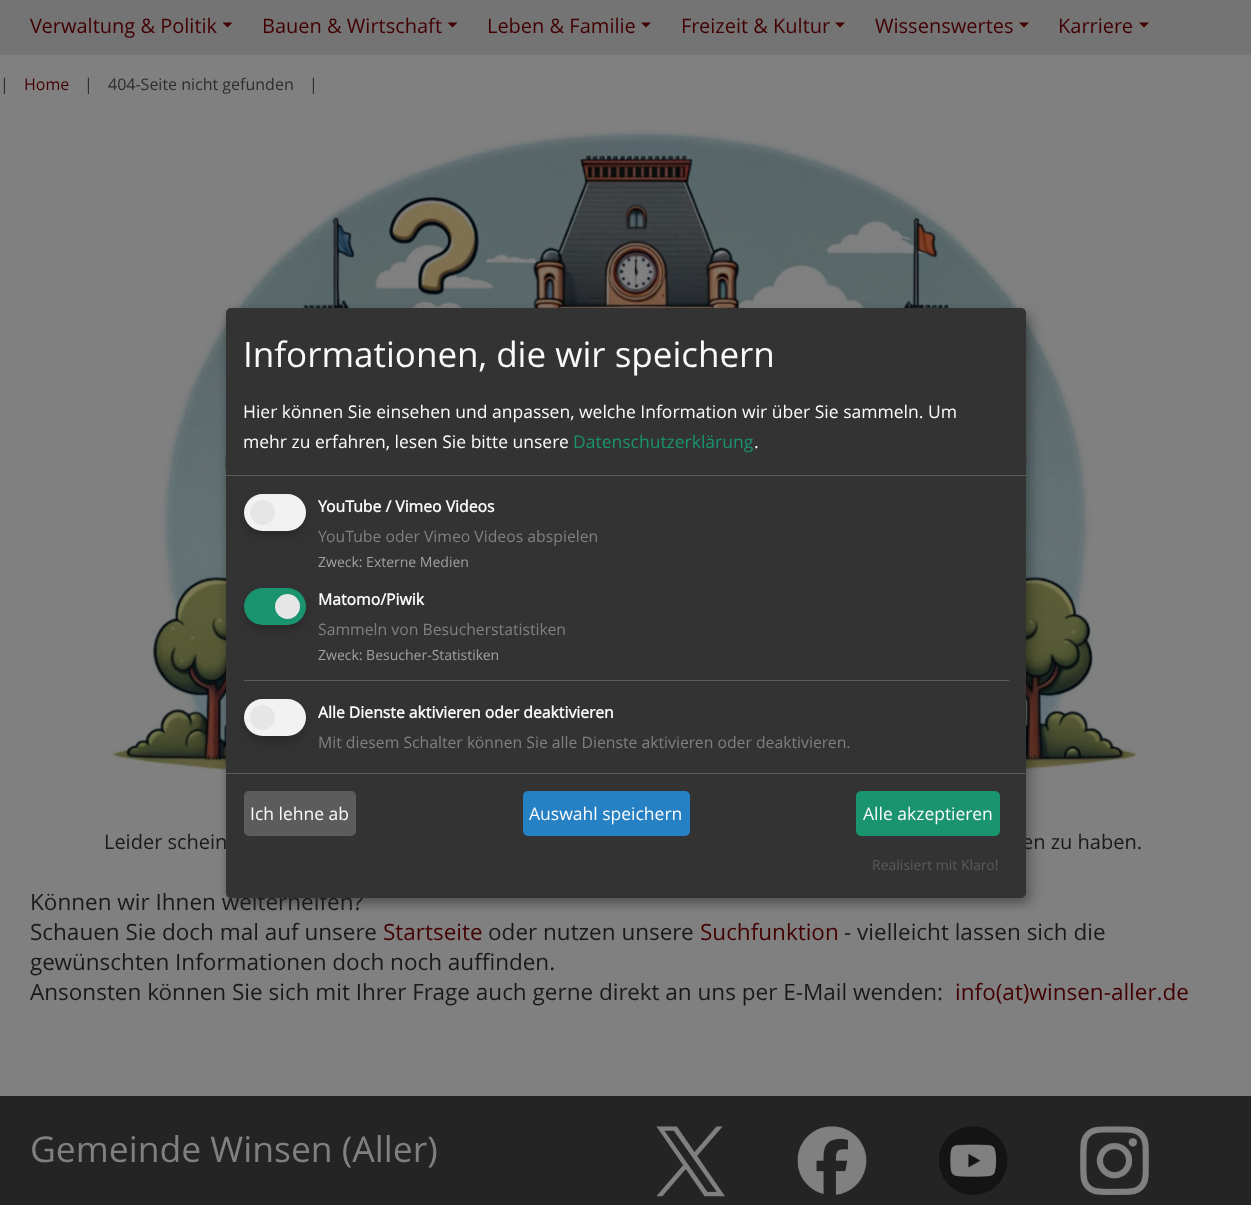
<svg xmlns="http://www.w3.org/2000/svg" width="1251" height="1205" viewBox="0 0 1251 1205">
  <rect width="100%" height="100%" fill="#808080"/>
  <path d="M0 0h1251v55H0z" fill="#747475"/>
  <path d="M222.5 22.5H232.5L227.5 27.5Z" fill="#430002"/>
  <path d="M447.5 22.5H457.5L452.5 27.5Z" fill="#430002"/>
  <path d="M641 22.5H651L646 27.5Z" fill="#430002"/>
  <path d="M835 22.5H845L840 27.5Z" fill="#430002"/>
  <path d="M1019 22.5H1029L1024 27.5Z" fill="#430002"/>
  <path d="M1139 22.5H1149L1144 27.5Z" fill="#430002"/>
  <image x="112" y="130" width="1025" height="659" href="img/1.png"/>
  <rect x="233" y="314" width="800" height="590" rx="5" fill="#00000030" filter="blur(6px)"/>
  <rect x="226" y="313" width="800" height="590" rx="5" fill="#00000033" filter="blur(4px)"/>
  <path d="M0 1096h1251v109H0z" fill="#242424"/>
  <image x="656" y="1126" width="69" height="71" href="img/2.png"/>
  <image x="797" y="1126" width="70" height="69" href="img/3.png"/>
  <image x="939" y="1126" width="69" height="69" href="img/4.png"/>
  <image x="1080" y="1126" width="69" height="69" href="img/5.png"/>
  <g font-family="Open Sans" font-size="20" fill="#430002">
    <text x="30" y="33">Verwaltung &amp; Politik</text>
    <text x="262" y="33">Bauen &amp; Wirtschaft</text>
    <text x="487" y="33">Leben &amp; Familie</text>
    <text x="681" y="33">Freizeit &amp; Kultur</text>
    <text x="875" y="33">Wissenswertes</text>
    <text x="1058" y="33">Karriere</text>
  </g>
  <text x="0" y="90" font-family="Open Sans" font-size="16" fill="#2b2d31">|</text>
  <text x="24" y="90" font-family="Open Sans" font-size="16" fill="#430002">Home</text>
  <g font-family="Open Sans" font-size="16" fill="#2b2d31">
    <text x="84" y="90">|</text>
    <text x="108" y="90">404-Seite nicht gefunden</text>
    <text x="309" y="90">|</text>
  </g>
  <g font-family="Open Sans" font-size="20" fill="#1a1a1c">
    <text x="104" y="849">Leider schein</text>
    <text x="1022" y="849">en zu haben.</text>
  </g>
  <g font-family="Open Sans" font-size="22.5" fill="#1a1a1c">
    <text x="30" y="910">Können wir Ihnen weiterhelfen?</text>
    <text x="30" y="940">Schauen Sie doch mal auf unsere</text>
  </g>
  <text x="383" y="940" font-family="Open Sans" font-size="22.5" fill="#430002">Startseite</text>
  <text x="488" y="940" font-family="Open Sans" font-size="22.5" fill="#1a1a1c">oder nutzen unsere</text>
  <text x="700" y="940" font-family="Open Sans" font-size="22.5" fill="#430002">Suchfunktion</text>
  <g font-family="Open Sans" font-size="22.5" fill="#1a1a1c">
    <text x="844" y="940">- vielleicht lassen sich die</text>
    <text x="30" y="970">gewünschten Informationen doch noch auffinden.</text>
    <text x="30" y="1000">Ansonsten können Sie sich mit Ihrer Frage auch gerne direkt an uns per E-Mail wenden:</text>
  </g>
  <text x="955" y="1000" font-family="Open Sans" font-size="22.5" fill="#430002">info(at)winsen-aller.de</text>
  <rect x="226" y="308" width="800" height="590" rx="5" fill="#333"/>
  <path d="M226 475h800v1H226z" fill="#5c5c5c"/>
  <text x="243" y="367" font-family="Open Sans" font-size="35" fill="#fafafa">Informationen, die wir speichern</text>
  <g font-family="Open Sans" font-size="17.5" fill="#fafafa">
    <text x="243" y="418">Hier können Sie einsehen und anpassen, welche Information wir über Sie sammeln. Um</text>
    <text x="243" y="448">mehr zu erfahren, lesen Sie bitte unsere</text>
  </g>
  <text x="573" y="448" font-family="Open Sans" font-size="17.5" fill="#1a936f">Datenschutzerklärung</text>
  <text x="754" y="448" font-family="Open Sans" font-size="17.5" fill="#fafafa">.</text>
  <rect x="244" y="499" width="62" height="37" rx="18.5" fill="#00000033" filter="blur(4px)"/>
  <rect x="244" y="494" width="62" height="37" rx="18.5" fill="#f2f2f2"/>
  <circle cx="262.5" cy="512.5" r="12.5" fill="#e6e6e6"/>
  <text x="318" y="512" font-family="Open Sans" font-size="15.75" font-weight="bold" fill="#fafafa">YouTube / Vimeo Videos</text>
  <text x="318" y="542" font-family="Open Sans" font-size="15.75" fill="#808080">YouTube oder Vimeo Videos abspielen</text>
  <text x="318" y="567" font-family="Open Sans" font-size="14" fill="#a0a0a0">Zweck: Externe Medien</text>
  <rect x="244" y="593" width="62" height="37" rx="18.5" fill="#00000033" filter="blur(4px)"/>
  <rect x="244" y="588" width="62" height="37" rx="18.5" fill="#1a936f"/>
  <circle cx="287.5" cy="606.5" r="12.5" fill="#e6e6e6"/>
  <text x="318" y="605" font-family="Open Sans" font-size="15.75" font-weight="bold" fill="#fafafa">Matomo/Piwik</text>
  <text x="318" y="635" font-family="Open Sans" font-size="15.75" fill="#808080">Sammeln von Besucherstatistiken</text>
  <text x="318" y="660" font-family="Open Sans" font-size="14" fill="#a0a0a0">Zweck: Besucher-Statistiken</text>
  <path d="M244 680h765v1H244z" fill="#5c5c5c"/>
  <rect x="244" y="704" width="62" height="37" rx="18.5" fill="#00000033" filter="blur(4px)"/>
  <rect x="244" y="699" width="62" height="37" rx="18.5" fill="#f2f2f2"/>
  <circle cx="262.5" cy="717.5" r="12.5" fill="#e6e6e6"/>
  <text x="318" y="718" font-family="Open Sans" font-size="15.75" font-weight="bold" fill="#fafafa">Alle Dienste aktivieren oder deaktivieren</text>
  <text x="318" y="748" font-family="Open Sans" font-size="15.75" fill="#808080">Mit diesem Schalter können Sie alle Dienste aktivieren oder deaktivieren.</text>
  <path d="M226 773h800v1H226z" fill="#5c5c5c"/>
  <rect x="244" y="791" width="112" height="45" rx="5" fill="#5c5c5c"/>
  <text x="250" y="820" font-family="Open Sans" font-size="17.5" fill="#fafafa">Ich lehne ab</text>
  <rect x="523" y="791" width="167" height="45" rx="5" fill="#2581c4"/>
  <text x="529" y="820" font-family="Open Sans" font-size="17.5" fill="#fafafa">Auswahl speichern</text>
  <rect x="856" y="791" width="144" height="45" rx="5" fill="#1a936f"/>
  <text x="863" y="820" font-family="Open Sans" font-size="17.5" fill="#fafafa">Alle akzeptieren</text>
  <text x="872" y="870" font-family="Open Sans" font-size="14" fill="#5c5c5c">Realisiert mit Klaro!</text>
  <text x="30" y="1162" font-family="Open Sans" font-size="35.5" fill="#808080">Gemeinde Winsen (Aller)</text>
</svg>
